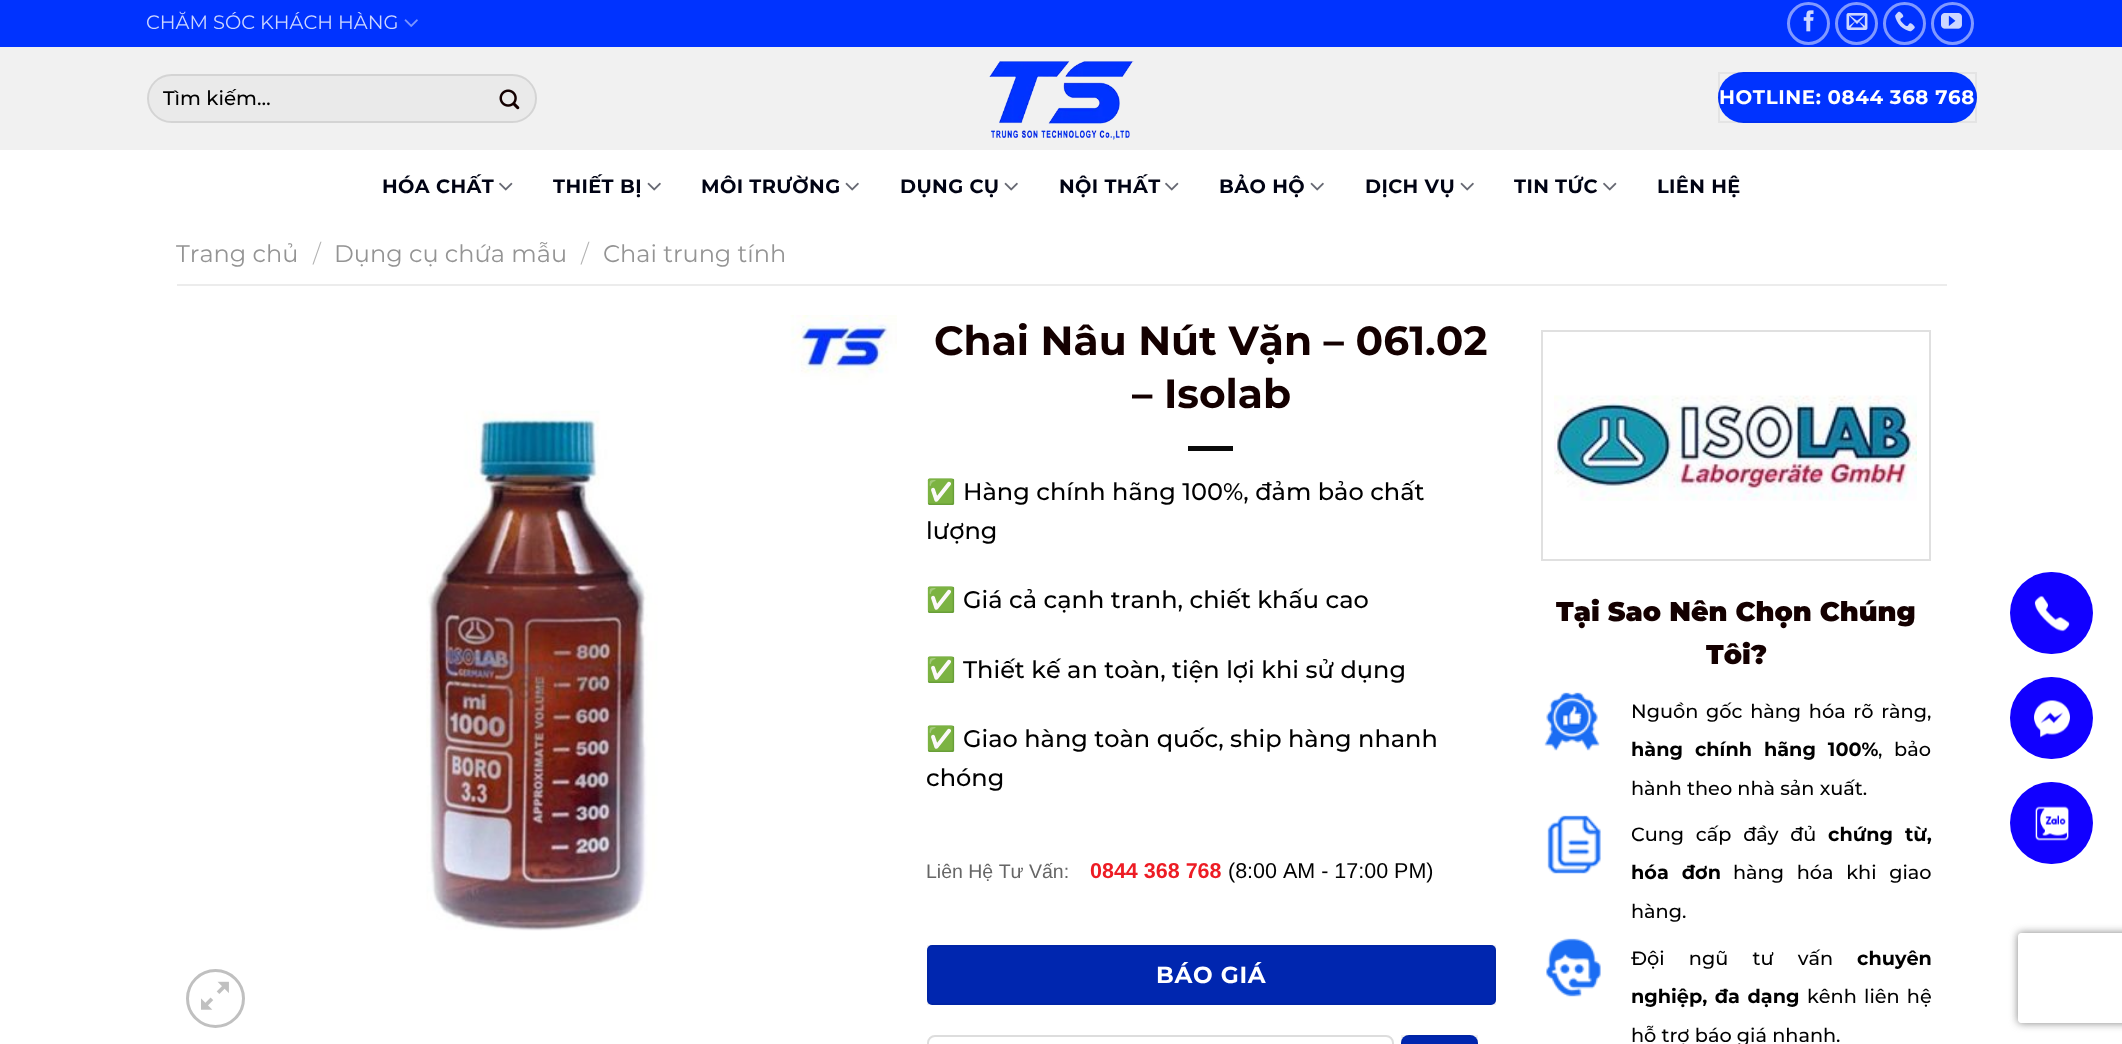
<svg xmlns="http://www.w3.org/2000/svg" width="2122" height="1044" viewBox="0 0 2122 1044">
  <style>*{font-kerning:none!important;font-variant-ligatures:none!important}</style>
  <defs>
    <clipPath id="clip1"><path d="M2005 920H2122V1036H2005ZM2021 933H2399C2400.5 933 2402 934.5 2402 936V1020C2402 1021.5 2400.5 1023 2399 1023H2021C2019.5 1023 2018 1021.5 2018 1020V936C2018 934.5 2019.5 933 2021 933Z" clip-rule="evenodd"/></clipPath>
  </defs>
  <rect width="100%" height="100%" fill="#fff"/>
  <path d="M0 47h2122v103H0z" fill="#f1f1f1"/>
  <path d="M0 0h2122v47H0z" fill="#03f"/>
  <image x="404" y="19" width="14" height="8" href="img/1.png"/>
  <circle cx="1808.5" cy="23.5" r="20" fill="none" stroke="#8099ff" stroke-width="3"/>
  <image x="1803" y="10" width="11" height="22" href="img/2.png"/>
  <circle cx="1856.5" cy="23.5" r="20" fill="none" stroke="#8099ff" stroke-width="3"/>
  <image x="1846" y="13" width="22" height="17" href="img/3.png"/>
  <circle cx="1904.5" cy="23.5" r="20" fill="none" stroke="#8099ff" stroke-width="3"/>
  <image x="1895" y="11" width="20" height="21" href="img/4.png"/>
  <circle cx="1952.5" cy="23.5" r="20" fill="none" stroke="#8099ff" stroke-width="3"/>
  <image x="1941" y="13" width="21" height="16" href="img/5.png"/>
  <rect x="147" y="74" width="390" height="49" rx="24.5" fill="#eaeaea"/>
  <rect x="148" y="75" width="388" height="47" rx="23.5" fill="none" stroke="#00000017" stroke-width="2"/>
  <image x="499" y="89" width="21" height="21" href="img/6.png"/>
  <image x="989" y="61" width="145" height="79" href="img/7.png"/>
  <rect x="1718" y="72" width="259" height="51" rx="25.5" fill="#03f"/>
  <path d="M1719 73h257v49H1719z" fill="none" stroke="#0000000d" stroke-width="2"/>
  <image x="499" y="182" width="14" height="9" href="img/8.png"/>
  <image x="647" y="182" width="14" height="9" href="img/9.png"/>
  <image x="845" y="182" width="14" height="9" href="img/9.png"/>
  <image x="1004" y="182" width="14" height="9" href="img/9.png"/>
  <image x="1165" y="182" width="14" height="9" href="img/8.png"/>
  <image x="1310" y="182" width="14" height="9" href="img/9.png"/>
  <image x="1460" y="182" width="14" height="9" href="img/9.png"/>
  <image x="1603" y="182" width="14" height="9" href="img/8.png"/>
  <path d="M177 284h1770v2H177z" fill="#ececec"/>
  <image x="426" y="315" width="471" height="616" href="img/10.png"/>
  <circle cx="215.5" cy="998.5" r="28" fill="none" stroke="#c0c0c0" stroke-width="3"/>
  <image x="201" y="981" width="28" height="29" href="img/11.png"/>
  <path d="M1188 446h45v5H1188z" fill="#0a0a0a"/>
  <rect x="927" y="945" width="569" height="60" rx="5" fill="#0026af"/>
  <path d="M928 946h567v58H928z" fill="none" stroke="#0000000d" stroke-width="2"/>
  <rect x="928" y="1036" width="465" height="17" rx="7" fill="none" stroke="#ddd" stroke-width="2"/>
  <rect x="1401" y="1035" width="77" height="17" rx="8" fill="#0026af"/>
  <path d="M1402 1036h75v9H1402z" fill="none" stroke="#0000000d" stroke-width="2"/>
  <path d="M1542 331h388v229H1542z" fill="none" stroke="#e0e0e0" stroke-width="2"/>
  <image x="1554" y="395" width="363" height="106" href="img/12.png"/>
  <image x="1544" y="692" width="56" height="59" href="img/13.png"/>
  <image x="1547" y="815" width="54" height="59" href="img/14.png"/>
  <image x="1546" y="938" width="55" height="59" href="img/15.png"/>
  <rect x="2010" y="572" width="83" height="82" rx="41" fill="#10f"/>
  <image x="2034" y="595" width="36" height="37" href="img/16.png"/>
  <rect x="2010" y="677" width="83" height="82" rx="41" fill="#10f"/>
  <image x="2034" y="700" width="36" height="38" href="img/17.png"/>
  <rect x="2010" y="782" width="83" height="82" rx="41" fill="#10f"/>
  <image x="2035" y="806" width="34" height="35" href="img/18.png"/>
  <g clip-path="url(#clip1)">
    <rect x="2018" y="933" width="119" height="90" rx="3" fill="#808080" filter="blur(4px)"/>
  </g>
  <text x="146" y="29" font-family="Montserrat" font-size="19.4" fill="#ccd6ff">CHĂM SÓC KHÁCH HÀNG</text>
  <text x="163" y="105" font-family="Montserrat" font-size="19.75" font-weight="500" fill="#000">Tìm kiếm…</text>
  <text x="1719" y="104" font-family="Montserrat" font-size="19.75" font-weight="bold" letter-spacing="0.6" fill="#fff">HOTLINE: 0844 368 768</text>
  <g font-family="Montserrat" font-size="19.4" font-weight="bold" letter-spacing="0.4" fill="#000314">
    <text x="382" y="193">HÓA CHẤT</text>
    <text x="553" y="193">THIẾT BỊ</text>
    <text x="701" y="193">MÔI TRƯỜNG</text>
    <text x="900" y="193">DỤNG CỤ</text>
    <text x="1059" y="193">NỘI THẤT</text>
    <text x="1219" y="193">BẢO HỘ</text>
    <text x="1365" y="193">DỊCH VỤ</text>
    <text x="1514" y="193">TIN TỨC</text>
    <text x="1657" y="193">LIÊN HỆ</text>
  </g>
  <text x="176" y="262" font-family="Montserrat" font-size="24" fill="#949494">Trang chủ</text>
  <text x="313" y="262" font-family="Montserrat" font-size="24" font-weight="300" fill="#b2b2b2">/</text>
  <text x="334" y="262" font-family="Montserrat" font-size="24" fill="#949494">Dụng cụ chứa mẫu</text>
  <text x="581" y="262" font-family="Montserrat" font-size="24" font-weight="300" fill="#b2b2b2">/</text>
  <text x="603" y="262" font-family="Montserrat" font-size="24" fill="#949494">Chai trung tính</text>
  <g font-family="Montserrat" font-size="40.75" font-weight="bold" fill="#140000">
    <text x="934" y="355">Chai Nâu Nút Vặn – 061.02</text>
    <text x="1132" y="408">– Isolab</text>
  </g>
  <text x="926" y="500" font-family="Noto Color Emoji" font-size="24" fill="#000">✅</text>
  <g font-family="Montserrat" font-size="24" font-weight="500" fill="#000">
    <text x="963" y="500">Hàng chính hãng 100%, đảm bảo chất</text>
    <text x="926" y="539">lượng</text>
  </g>
  <text x="926" y="608" font-family="Noto Color Emoji" font-size="24" fill="#000">✅</text>
  <text x="963" y="608" font-family="Montserrat" font-size="24" font-weight="500" fill="#000">Giá cả cạnh tranh, chiết khấu cao</text>
  <text x="926" y="678" font-family="Noto Color Emoji" font-size="24" fill="#000">✅</text>
  <text x="963" y="678" font-family="Montserrat" font-size="24" font-weight="500" fill="#000">Thiết kế an toàn, tiện lợi khi sử dụng</text>
  <text x="926" y="747" font-family="Noto Color Emoji" font-size="24" fill="#000">✅</text>
  <g font-family="Montserrat" font-size="24" font-weight="500" fill="#000">
    <text x="963" y="747">Giao hàng toàn quốc, ship hàng nhanh</text>
    <text x="926" y="786">chóng</text>
  </g>
  <text x="926" y="878" font-family="Liberation Sans" font-size="19.5" fill="#666">Liên Hệ Tư Vấn:</text>
  <text x="1090" y="878" font-family="Liberation Sans" font-size="21.5" font-weight="bold" fill="#ed1c24">0844 368 768</text>
  <text x="1228" y="878" font-family="Liberation Sans" font-size="21.5" fill="#000">(8:00 AM - 17:00 PM)</text>
  <text x="1156" y="983" font-family="Montserrat" font-size="23.25" font-weight="bold" letter-spacing="0.75" fill="#fff">BÁO GIÁ</text>
  <g font-family="Montserrat" font-size="27" font-weight="900" fill="#140000">
    <text x="1556" y="621">Tại Sao Nên Chọn Chúng</text>
    <text x="1706" y="664">Tôi?</text>
  </g>
  <text x="1631" y="718" word-spacing="2.5" font-family="Montserrat" font-size="19.25" font-weight="500" fill="#000">Nguồn gốc hàng hóa rõ ràng,</text>
  <text x="1631" y="756" word-spacing="6.5" font-family="Montserrat" font-size="19.25" font-weight="bold" fill="#000">hàng chính hãng 100%</text>
  <g font-family="Montserrat" font-size="19.25" font-weight="500" fill="#000">
    <text x="1878" y="756" word-spacing="6.5">, bảo</text>
    <text x="1631" y="795">hành theo nhà sản xuất.</text>
    <text x="1631" y="841" word-spacing="6.5">Cung cấp đầy đủ</text>
  </g>
  <g font-family="Montserrat" font-size="19.25" font-weight="bold" fill="#000">
    <text x="1828" y="841" word-spacing="6.5">chứng từ,</text>
    <text x="1631" y="879" word-spacing="7.5">hóa đơn</text>
  </g>
  <g font-family="Montserrat" font-size="19.25" font-weight="500" fill="#000">
    <text x="1733" y="879" word-spacing="7.5">hàng hóa khi giao</text>
    <text x="1631" y="918">hàng.</text>
    <text x="1631" y="965" word-spacing="19">Đội ngũ tư vấn</text>
  </g>
  <g font-family="Montserrat" font-size="19.25" font-weight="bold" fill="#000">
    <text x="1857" y="965">chuyên</text>
    <text x="1631" y="1003" word-spacing="2">nghiệp, đa dạng</text>
  </g>
  <g font-family="Montserrat" font-size="19.25" font-weight="500" fill="#000">
    <text x="1807" y="1003" word-spacing="2">kênh liên hệ</text>
    <text x="1631" y="1042">hỗ trợ báo giá nhanh.</text>
  </g>
</svg>
